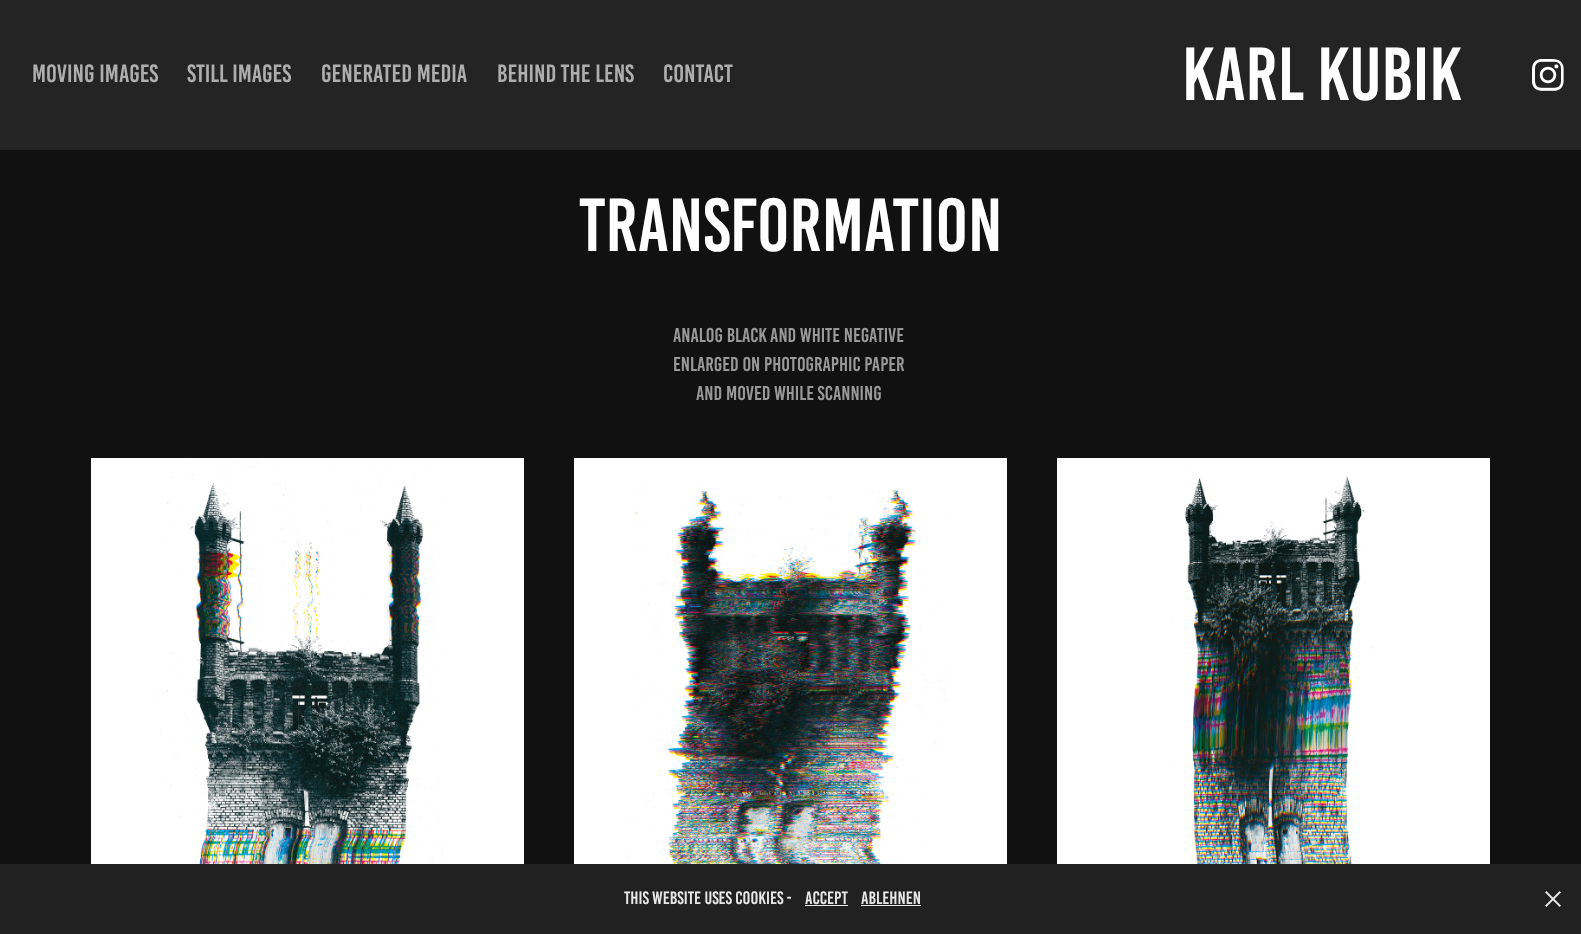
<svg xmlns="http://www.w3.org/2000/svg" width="1581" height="934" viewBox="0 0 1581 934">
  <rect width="100%" height="100%" fill="#111"/>
  <path d="M0 0h1581v150H0z" fill="#242424"/>
  <image x="1532" y="59" width="32" height="32" href="img/1.png"/>
  <image x="91" y="458" width="433" height="406" href="img/2.png"/>
  <image x="574" y="458" width="433" height="406" href="img/3.png"/>
  <image x="1057" y="458" width="433" height="406" href="img/4.png"/>
  <path d="M0 864h1581v70H0z" fill="#212121"/>
  <path d="M805 905h43v1H805z" fill="#e8e8e8"/>
  <path d="M861 905h60v1H861z" fill="#e8e8e8"/>
  <image x="1545" y="891" width="16" height="16" href="img/5.png"/>
  <g font-family="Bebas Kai" font-size="25" fill="#aeaeae">
    <text x="32" y="82">MOVING IMAGES</text>
    <text x="187" y="82">STILL IMAGES</text>
    <text x="321" y="82">GENERATED MEDIA</text>
    <text x="497" y="82">BEHIND THE LENS</text>
    <text x="663" y="82">CONTACT</text>
  </g>
  <g font-family="Bebas Kai" font-size="75" fill="#fff">
    <text x="1182" y="100">KARL KUBIK</text>
    <text x="579" y="251">Transformation</text>
  </g>
  <g font-family="Bebas Kai" font-size="20" fill="#999">
    <text x="673" y="342">Analog Black and white negative</text>
    <text x="673" y="371">enlarged on photographic paper</text>
    <text x="696" y="400">and moved while scanning</text>
  </g>
  <g font-family="Bebas Kai" font-size="18" fill="#e8e8e8">
    <text x="624" y="904">This website uses cookies -</text>
    <text x="805" y="904">accept</text>
    <text x="861" y="904">Ablehnen</text>
  </g>
</svg>
